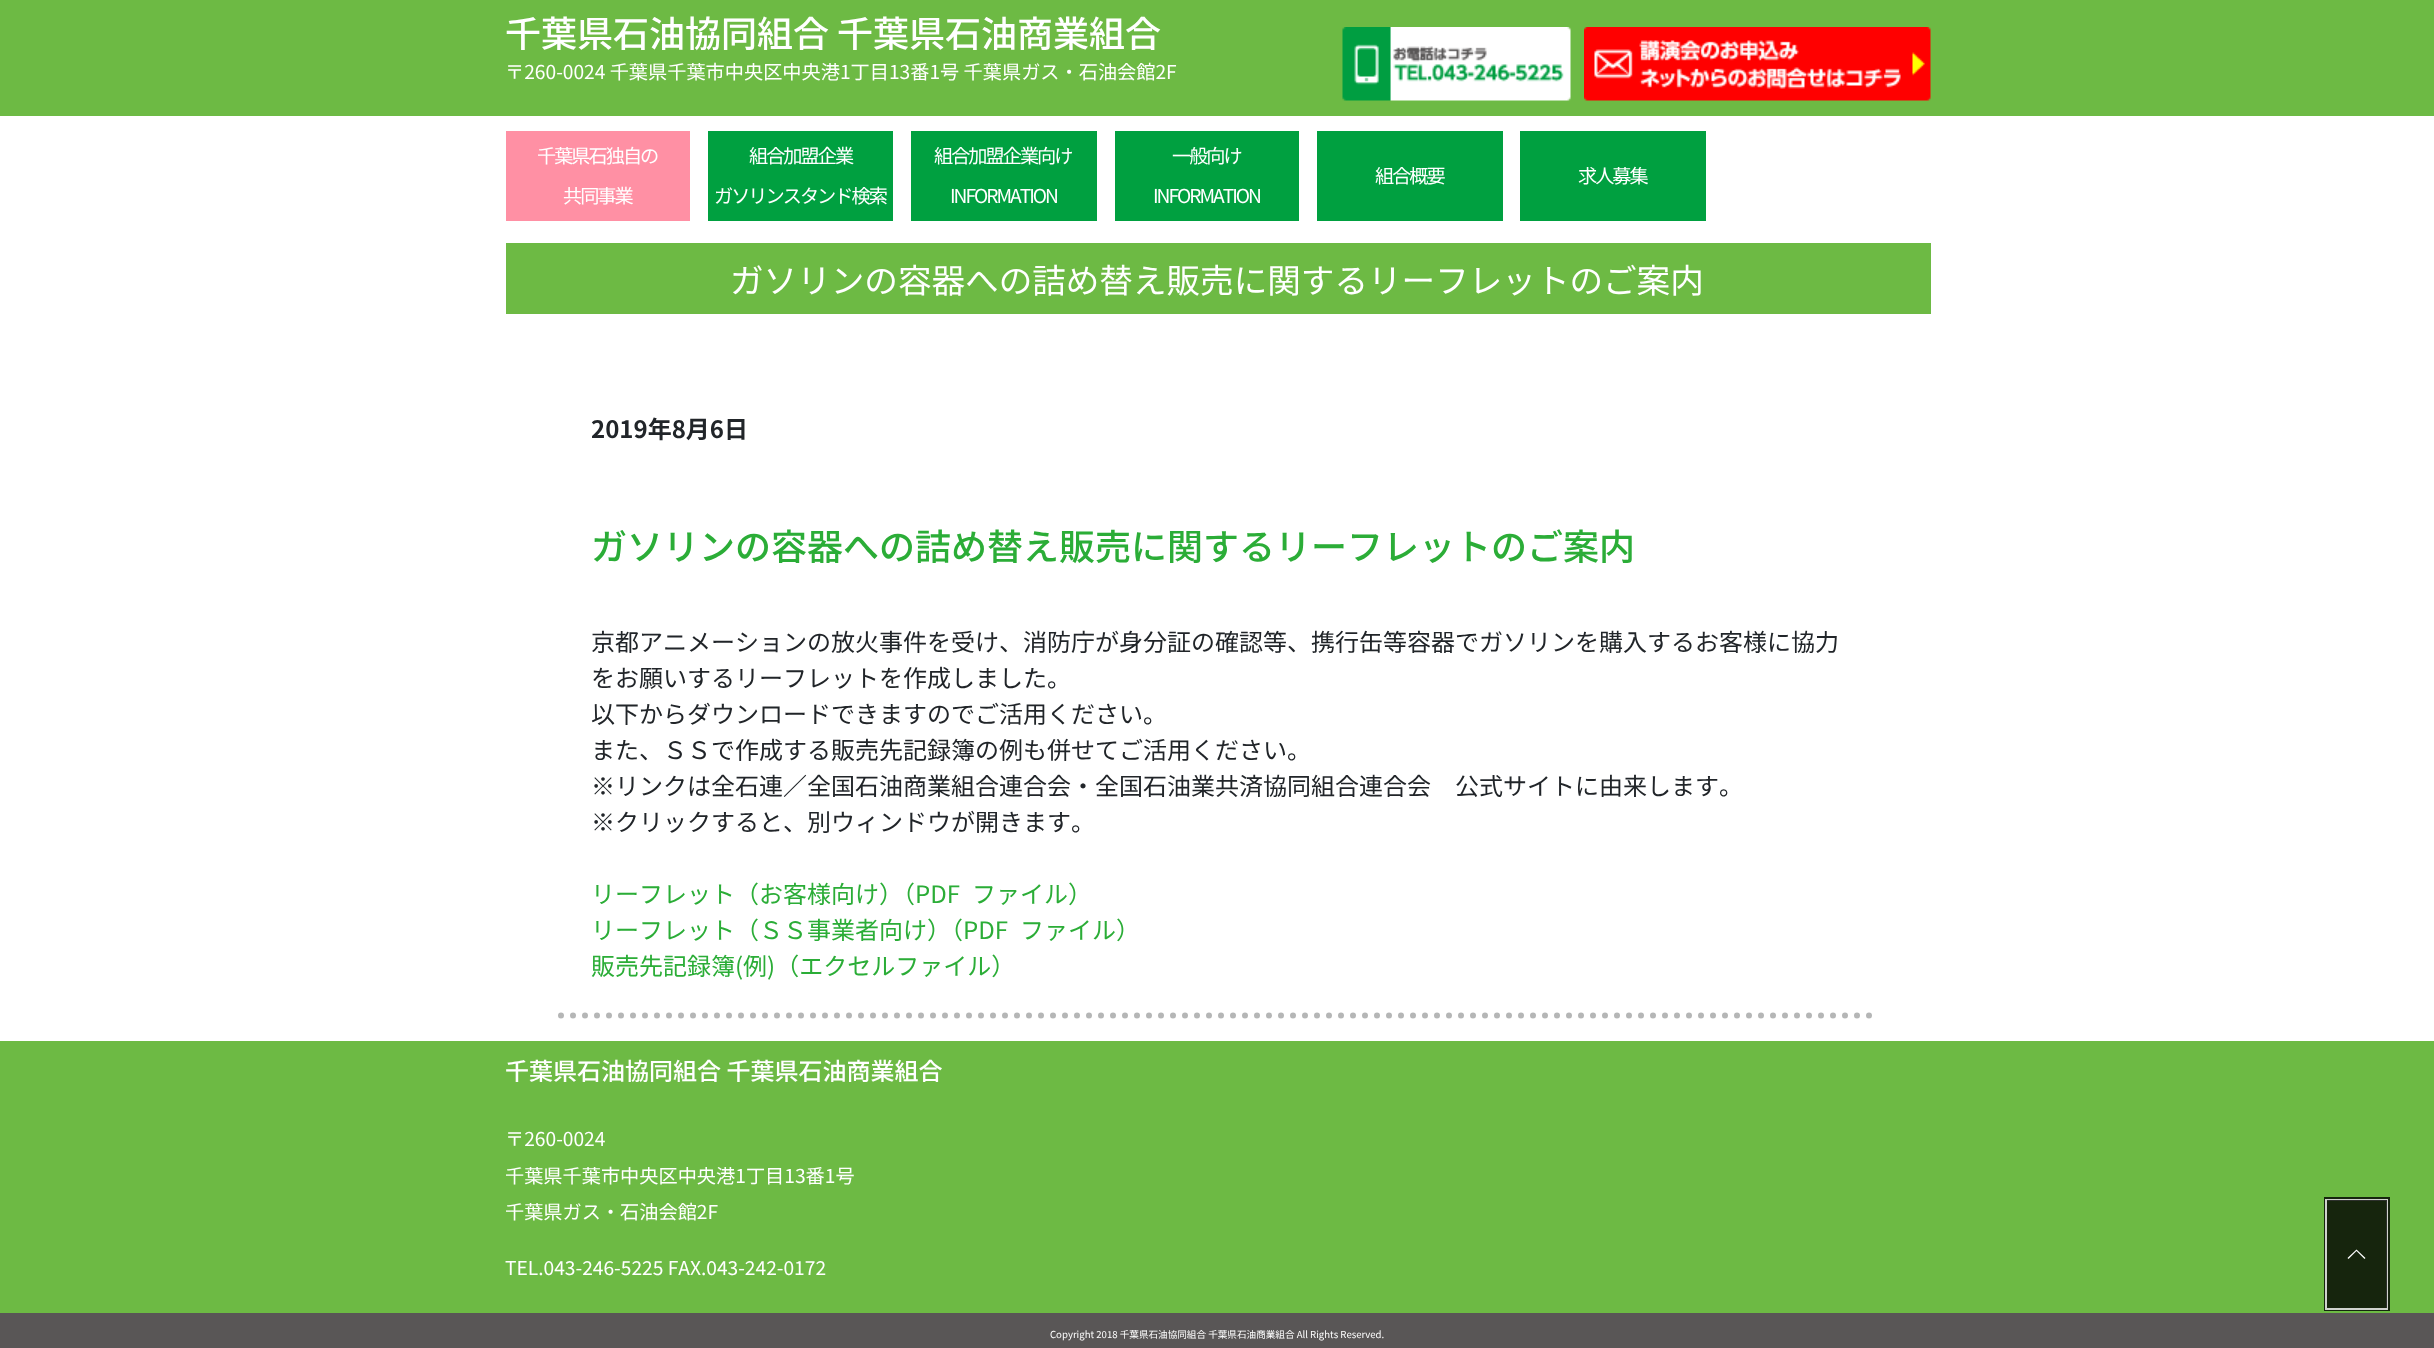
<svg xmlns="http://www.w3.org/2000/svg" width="2434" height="1348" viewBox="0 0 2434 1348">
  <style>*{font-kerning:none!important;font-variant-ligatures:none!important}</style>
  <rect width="100%" height="100%" fill="#fff"/>
  <path d="M0 0h2434v116H0z" fill="#6dba44"/>
  <image x="1342" y="27" width="229" height="74" href="img/1.png"/>
  <image x="1584" y="27" width="347" height="74" href="img/2.png"/>
  <path d="M506 131h184v90H506z" fill="#ff90a4"/>
  <path d="M708 131h185v90H708z" fill="#00a040"/>
  <path d="M911 131h186v90H911z" fill="#00a040"/>
  <path d="M1115 131h184v90H1115z" fill="#00a040"/>
  <path d="M1317 131h186v90H1317z" fill="#00a040"/>
  <path d="M1520 131h186v90H1520z" fill="#00a040"/>
  <path d="M506 243h1425v71H506z" fill="#6dba44"/>
  <path d="M561 1015.5H1873.5" fill="none" stroke="#b5b6b6" stroke-width="6" stroke-linecap="round" stroke-dasharray="0 12"/>
  <path d="M0 1041h2434v272H0z" fill="#6dba44"/>
  <path d="M0 1313h2434v35H0z" fill="#595656"/>
  <path d="M2325.5 1198.5h63v111H2325.5z" fill="none" stroke="#16250e" stroke-width="3"/>
  <path d="M2326 1200h61v109H2326z" fill="none" stroke="#ffffffcc" stroke-width="2"/>
  <path d="M2327 1200h60v108H2327z" fill="#000000cc"/>
  <path d="M2365.5 1258L2364.5 1259L2356.5 1251L2348.5 1259L2347.5 1258L2356.5 1249.5Z" fill="#fff"/>
  <text x="505" y="47" font-family="Noto Sans JP" font-size="36" font-weight="500" fill="#fff">千葉県石油協同組合 千葉県石油商業組合</text>
  <text x="505" y="79" font-family="Noto Sans JP" font-size="19.2" fill="#fff">〒260-0024 千葉県千葉市中央区中央港1丁目13番1号 千葉県ガス・石油会館2F</text>
  <g font-family="Noto Sans JP" font-size="19.2" letter-spacing="-2" fill="#fff">
    <text x="537" y="163">千葉県石独自の</text>
    <text x="563" y="203">共同事業</text>
    <text x="749" y="163">組合加盟企業</text>
    <text x="714" y="203">ガソリンスタンド検索</text>
    <text x="934" y="163">組合加盟企業向け</text>
    <text x="950" y="203">INFORMATION</text>
    <text x="1172" y="163">一般向け</text>
    <text x="1153" y="203">INFORMATION</text>
    <text x="1375" y="183">組合概要</text>
    <text x="1578" y="183">求人募集</text>
  </g>
  <text x="730" y="293" font-family="Noto Sans JP" font-size="33.6" fill="#fff">ガソリンの容器への詰め替え販売に関するリーフレットのご案内</text>
  <text x="591" y="438" font-family="Noto Sans JP" font-size="24" font-weight="bold" fill="#212529">2019年8月6日</text>
  <text x="591" y="560" font-family="Noto Sans JP" font-size="36" font-weight="500" fill="#2bad37">ガソリンの容器への詰め替え販売に関するリーフレットのご案内</text>
  <g font-family="Noto Sans JP" font-size="24" fill="#212529">
    <text x="591" y="651">京都アニメーションの放火事件を受け、消防庁が身分証の確認等、携行缶等容器でガソリンを購入するお客様に協力</text>
    <text x="591" y="687">をお願いするリーフレットを作成しました。</text>
    <text x="591" y="723">以下からダウンロードできますのでご活用ください。</text>
    <text x="591" y="759">また、ＳＳで作成する販売先記録簿の例も併せてご活用ください。</text>
    <text x="591" y="795">※リンクは全石連／全国石油商業組合連合会・全国石油業共済協同組合連合会　公式サイトに由来します。</text>
    <text x="591" y="831">※クリックすると、別ウィンドウが開きます。</text>
  </g>
  <g font-family="Noto Sans JP" font-size="24" fill="#2bad37">
    <text x="591" y="903">リーフレット（お客様向け）（PDF</text>
    <text x="972" y="903">ファイル）</text>
    <text x="591" y="939">リーフレット（ＳＳ事業者向け）（PDF</text>
    <text x="1020" y="939">ファイル）</text>
    <text x="591" y="975">販売先記録簿(例)（エクセルファイル）</text>
  </g>
  <text x="505" y="1080" font-family="Noto Sans JP" font-size="24" font-weight="500" fill="#fff">千葉県石油協同組合 千葉県石油商業組合</text>
  <g font-family="Noto Sans JP" font-size="19.2" fill="#fff">
    <text x="505" y="1146">〒260-0024</text>
    <text x="505" y="1183">千葉県千葉市中央区中央港1丁目13番1号</text>
    <text x="505" y="1219">千葉県ガス・石油会館2F</text>
    <text x="505" y="1275">TEL.043-246-5225 FAX.043-242-0172</text>
  </g>
  <text x="1050" y="1338" font-family="Noto Sans JP" font-size="9.6" fill="#fff">Copyright 2018 千葉県石油協同組合 千葉県石油商業組合 All Rights Reserved.</text>
</svg>
